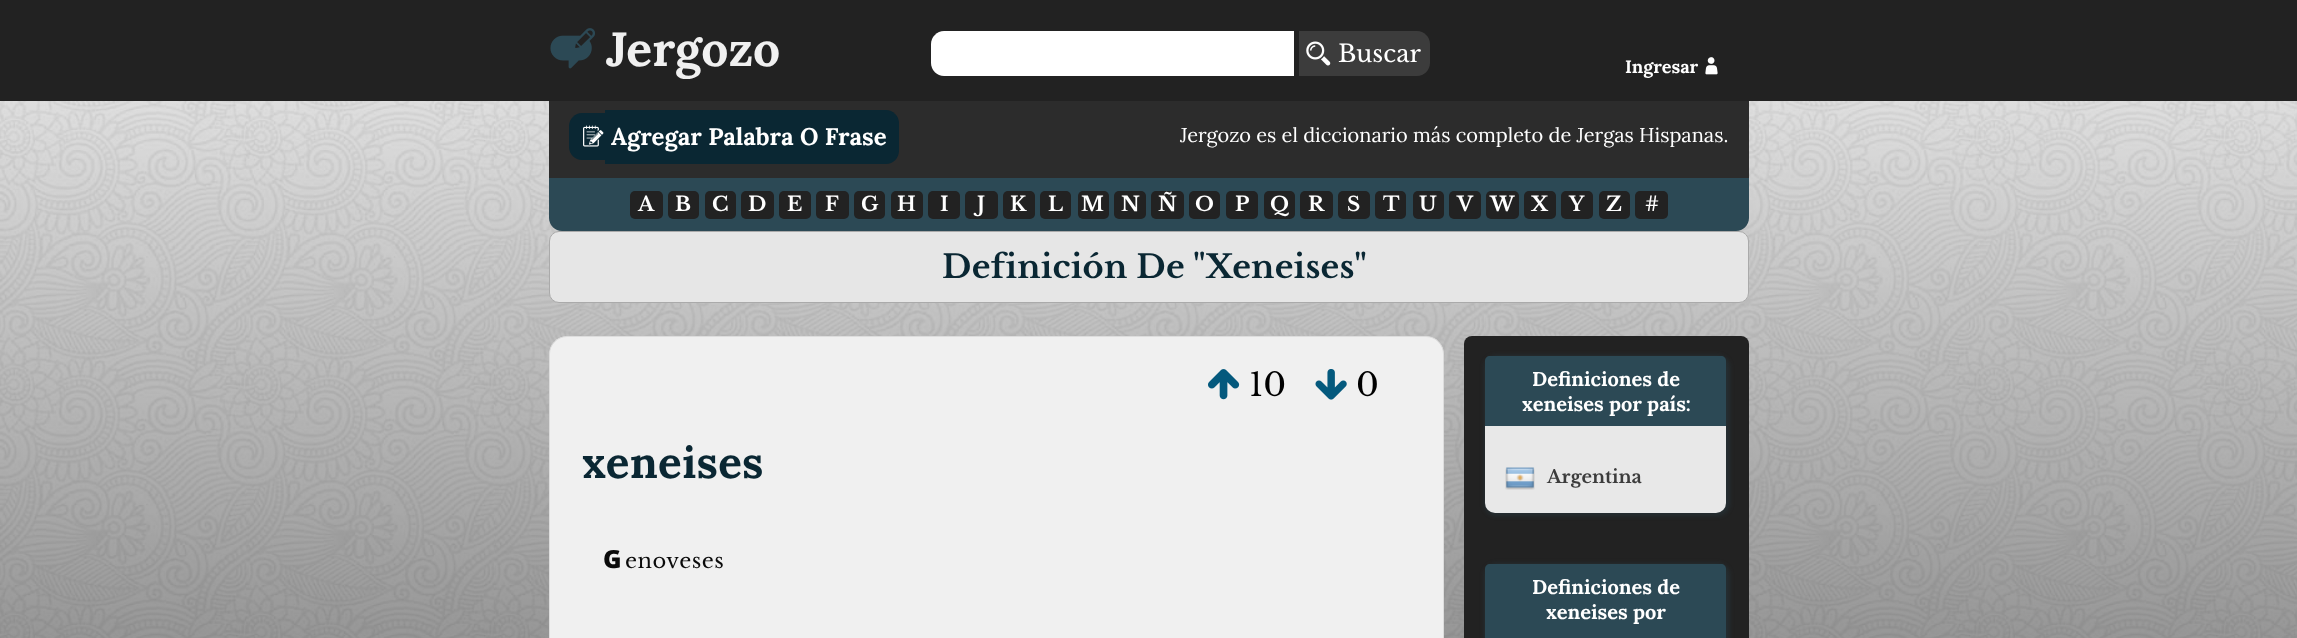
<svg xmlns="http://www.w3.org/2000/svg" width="2297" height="638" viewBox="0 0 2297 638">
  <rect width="100%" height="100%" fill="#fff"/>
  <image x="0" y="101" width="2297" height="537" href="img/1.png"/>
  <path d="M0 0h2297v101H0z" fill="#222"/>
  <image x="550" y="28" width="45" height="41" href="img/2.png"/>
  <path d="M944 31H1294V76H944C937 76 931 70 931 63V44C931 37 937 31 944 31Z" fill="#fff"/>
  <path d="M1299 31H1417C1424 31 1430 37 1430 44V63C1430 70 1424 76 1417 76H1299Z" fill="#3c3c3c"/>
  <image x="1306" y="41" width="25" height="25" href="img/3.png"/>
  <image x="1705" y="57" width="13" height="18" href="img/4.png"/>
  <path d="M549 101h1200v77H549z" fill="#2c2c2c"/>
  <path d="M582 113H605V160H582C575 160 569 154 569 147V126C569 119 575 113 582 113Z" fill="#0a2733"/>
  <image x="583" y="125" width="21" height="22" href="img/5.png"/>
  <path d="M605 110H886C893 110 899 116 899 123V151C899 158 893 164 886 164H605Z" fill="#0a2733"/>
  <path d="M549 178H1749V218C1749 225 1743 231 1736 231H562C555 231 549 225 549 218Z" fill="#2c4955"/>
  <rect x="630" y="191" width="33" height="28" rx="5" fill="#222"/>
  <rect x="668" y="191" width="31" height="28" rx="5" fill="#222"/>
  <rect x="705" y="191" width="31" height="28" rx="5" fill="#222"/>
  <rect x="741" y="191" width="33" height="28" rx="5" fill="#222"/>
  <rect x="779" y="191" width="32" height="28" rx="5" fill="#222"/>
  <rect x="816" y="191" width="33" height="28" rx="5" fill="#222"/>
  <rect x="854" y="191" width="31" height="28" rx="5" fill="#222"/>
  <rect x="891" y="191" width="32" height="28" rx="5" fill="#222"/>
  <rect x="928" y="191" width="32" height="28" rx="5" fill="#222"/>
  <rect x="965" y="191" width="33" height="28" rx="5" fill="#222"/>
  <rect x="1003" y="191" width="32" height="28" rx="5" fill="#222"/>
  <rect x="1040" y="191" width="31" height="28" rx="5" fill="#222"/>
  <rect x="1078" y="191" width="31" height="28" rx="5" fill="#222"/>
  <rect x="1114" y="191" width="32" height="28" rx="5" fill="#222"/>
  <rect x="1151" y="191" width="33" height="28" rx="5" fill="#222"/>
  <rect x="1189" y="191" width="31" height="28" rx="5" fill="#222"/>
  <rect x="1226" y="191" width="32" height="28" rx="5" fill="#222"/>
  <rect x="1264" y="191" width="31" height="28" rx="5" fill="#222"/>
  <rect x="1300" y="191" width="33" height="28" rx="5" fill="#222"/>
  <rect x="1338" y="191" width="32" height="28" rx="5" fill="#222"/>
  <rect x="1375" y="191" width="31" height="28" rx="5" fill="#222"/>
  <rect x="1413" y="191" width="31" height="28" rx="5" fill="#222"/>
  <rect x="1449" y="191" width="32" height="28" rx="5" fill="#222"/>
  <rect x="1486" y="191" width="33" height="28" rx="5" fill="#222"/>
  <rect x="1524" y="191" width="32" height="28" rx="5" fill="#222"/>
  <rect x="1561" y="191" width="32" height="28" rx="5" fill="#222"/>
  <rect x="1599" y="191" width="31" height="28" rx="5" fill="#222"/>
  <rect x="1635" y="191" width="33" height="28" rx="5" fill="#222"/>
  <rect x="549.5" y="231.5" width="1199" height="71" rx="9.5" fill="#e6e6e6" stroke="#aaa"/>
  <rect x="549.5" y="336.5" width="894" height="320" rx="17.5" fill="#f0f0f0" stroke="#ddd"/>
  <image x="1208" y="369" width="32" height="31" href="img/6.png"/>
  <image x="1315" y="369" width="32" height="31" href="img/7.png"/>
  <rect x="1464" y="336" width="285" height="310" rx="8" fill="#222"/>
  <rect x="1484" y="355" width="246" height="161" rx="13" fill="#2c49554d" filter="blur(2px)"/>
  <rect x="1485" y="356" width="241" height="157" rx="10" fill="#e8e8e8"/>
  <path d="M1490 356H1721C1724 356 1726 358 1726 361V426H1485V361C1485 358 1487 356 1490 356Z" fill="#2c4955"/>
  <image x="1505" y="467" width="30" height="23" href="img/8.png"/>
  <rect x="1484" y="563" width="246" height="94" rx="13" fill="#2c49554d" filter="blur(2px)"/>
  <path d="M1490 564H1721C1724 564 1726 566 1726 569V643H1485V569C1485 566 1487 564 1490 564Z" fill="#2c4955"/>
  <text x="606" y="66" font-family="Lora" font-size="48" font-weight="bold" fill="#f0f0f0">Jergozo</text>
  <text x="1338" y="62" font-family="Libre Baskerville" font-size="24" fill="#fff">Buscar</text>
  <text x="1625" y="73" font-family="Lora" font-size="18" font-weight="bold" fill="#fff">Ingresar</text>
  <text x="611" y="145" font-family="Lora" font-size="24" font-weight="bold" fill="#fff">Agregar Palabra O Frase</text>
  <text x="1180" y="142" font-family="Lora" font-size="20" fill="#fff">Jergozo es el diccionario más completo de Jergas Hispanas.</text>
  <g font-family="Libre Baskerville" font-size="20" font-weight="bold" fill="#fff">
    <text x="638" y="211">A</text>
    <text x="675" y="211">B</text>
    <text x="712" y="211">C</text>
    <text x="748" y="211">D</text>
    <text x="787" y="211">E</text>
    <text x="825" y="211">F</text>
    <text x="861" y="211">G</text>
    <text x="897" y="211">H</text>
    <text x="940" y="211">I</text>
    <text x="977" y="211">J</text>
    <text x="1010" y="211">K</text>
    <text x="1048" y="211">L</text>
    <text x="1081" y="211">M</text>
    <text x="1121" y="211">N</text>
    <text x="1158" y="211">Ñ</text>
    <text x="1195" y="211">O</text>
    <text x="1235" y="211">P</text>
    <text x="1270" y="211">Q</text>
    <text x="1308" y="211">R</text>
    <text x="1347" y="211">S</text>
    <text x="1383" y="211">T</text>
    <text x="1419" y="211">U</text>
    <text x="1457" y="211">V</text>
    <text x="1490" y="211">W</text>
    <text x="1531" y="211">X</text>
    <text x="1569" y="211">Y</text>
    <text x="1606" y="211">Z</text>
    <text x="1645" y="211">#</text>
  </g>
  <text x="942" y="278" font-family="Libre Baskerville" font-size="32" font-weight="bold" letter-spacing="0.25" fill="#0a2733">Definición De "Xeneises"</text>
  <g font-family="Libre Baskerville" font-size="32" fill="#000">
    <text x="1249" y="396">10</text>
    <text x="1356" y="396">0</text>
  </g>
  <text x="582" y="478" font-family="Lora" font-size="44" font-weight="bold" letter-spacing="0.25" fill="#0a2733">xeneises</text>
  <text x="603" y="568" font-family="Noto Sans" font-size="25" font-weight="900" letter-spacing="0.5" fill="#0a0a0a">G</text>
  <text x="625" y="568" font-family="Libre Baskerville" font-size="21" letter-spacing="0.5" fill="#0a0a0a">enoveses</text>
  <g font-family="Lora" font-size="20" font-weight="bold" fill="#fff">
    <text x="1532" y="386">Definiciones de</text>
    <text x="1522" y="411">xeneises por país:</text>
  </g>
  <text x="1547" y="483" font-family="Libre Baskerville" font-size="18" font-weight="bold" fill="#3c3c3c">Argentina</text>
  <g font-family="Lora" font-size="20" font-weight="bold" fill="#fff">
    <text x="1532" y="594">Definiciones de</text>
    <text x="1546" y="619">xeneises por</text>
  </g>
</svg>
